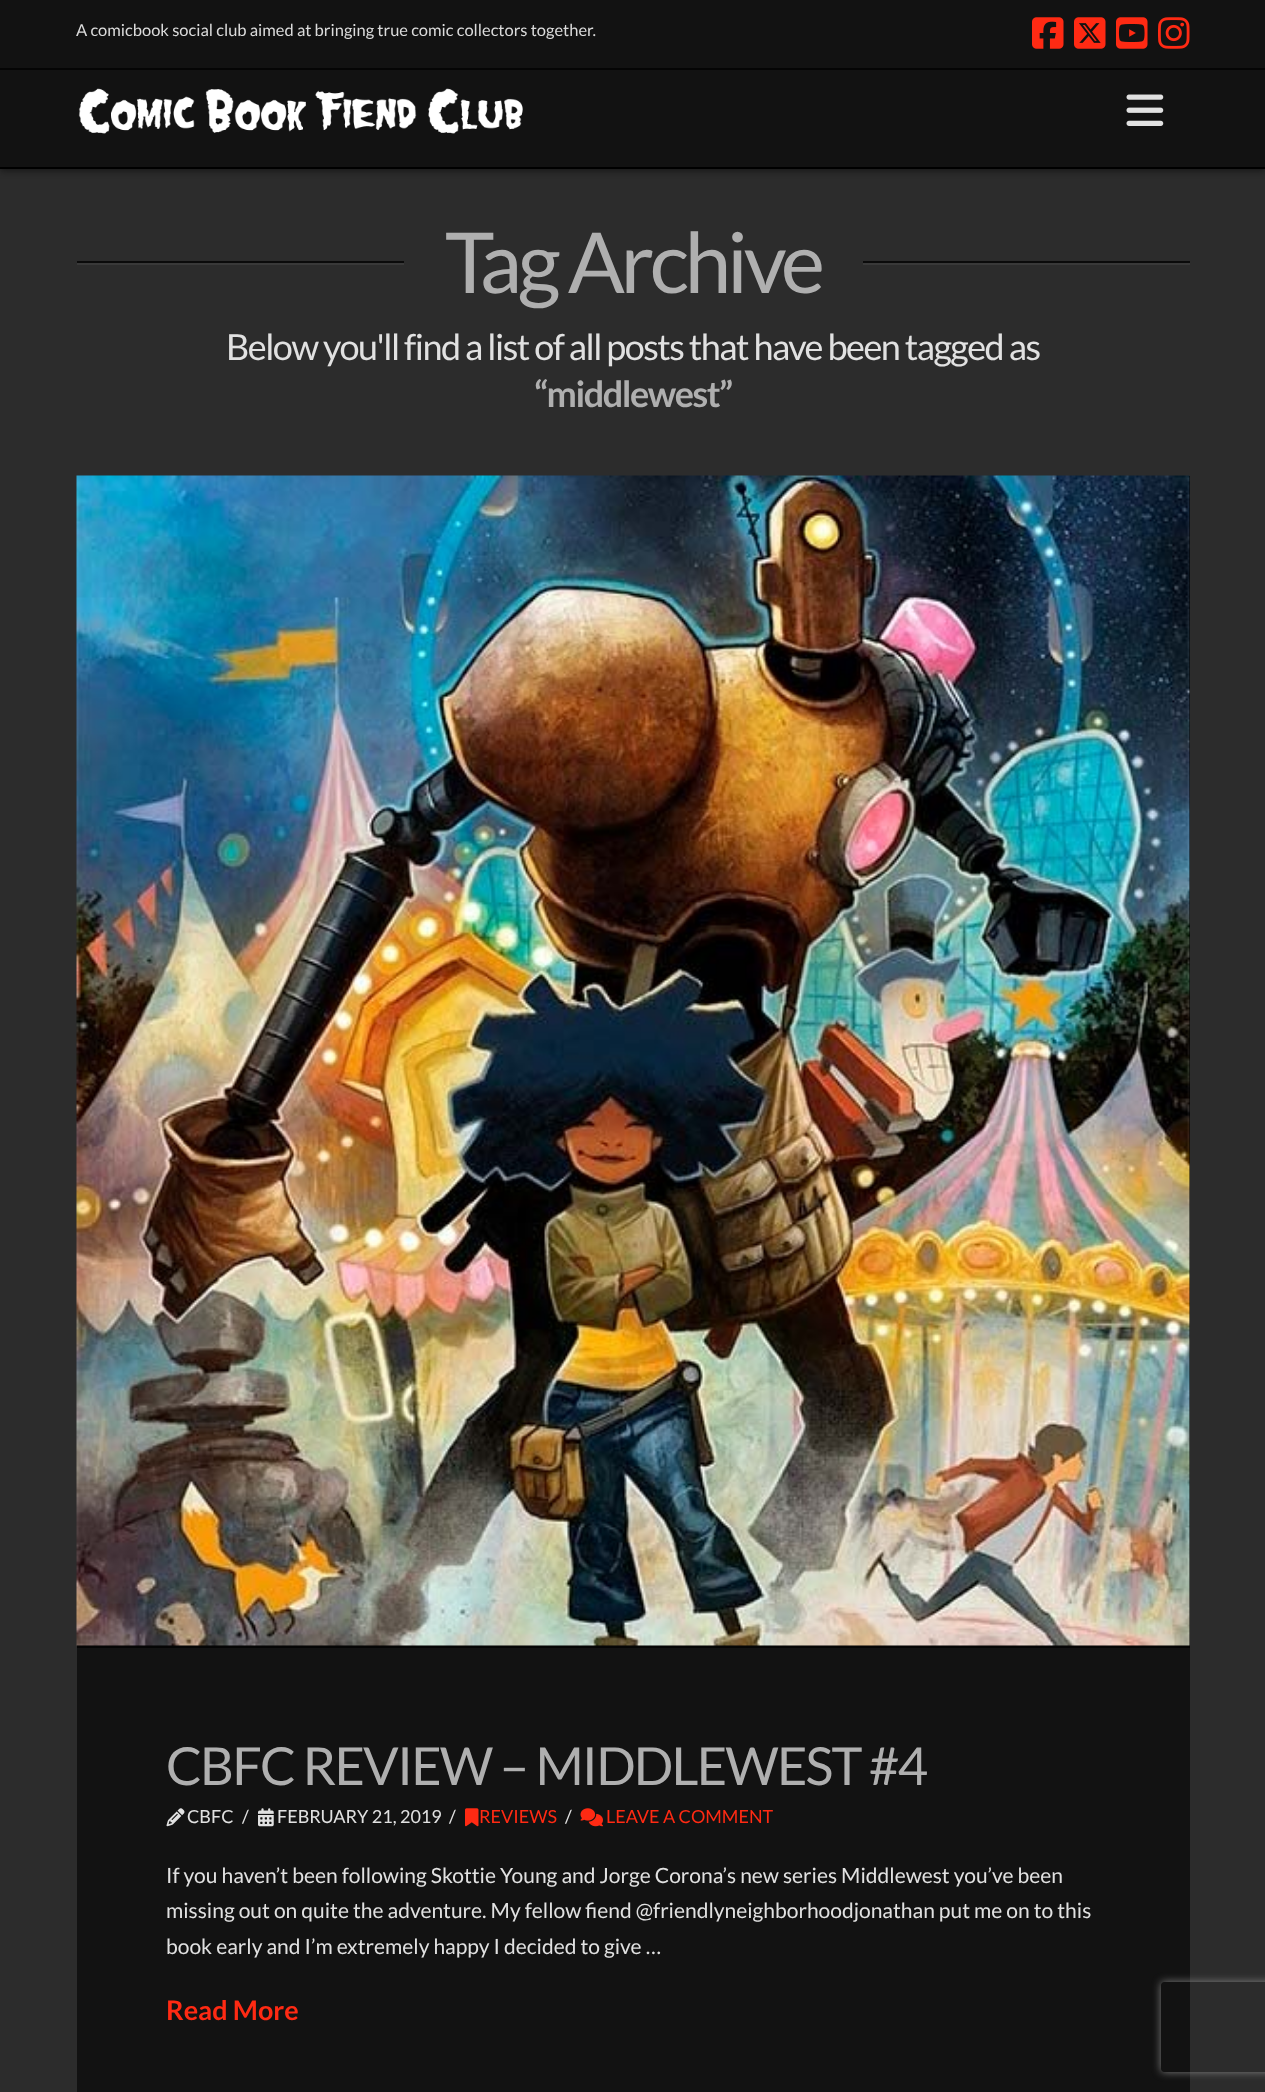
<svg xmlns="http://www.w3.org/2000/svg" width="1265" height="2092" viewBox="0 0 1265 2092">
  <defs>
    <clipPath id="clip1"><path d="M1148 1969H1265V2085H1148ZM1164 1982H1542C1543.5 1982 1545 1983.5 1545 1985V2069C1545 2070.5 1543.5 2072 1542 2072H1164C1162.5 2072 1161 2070.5 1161 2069V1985C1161 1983.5 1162.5 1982 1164 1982Z" clip-rule="evenodd"/></clipPath>
  </defs>
  <rect width="100%" height="100%" fill="#2c2c2c"/>
  <path d="M0 72h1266v99H0z" fill="#00000078" filter="blur(3.5px)"/>
  <path d="M0 0h1265v68H0z" fill="#121212"/>
  <path d="M0 68h1265v2H0z" fill="#050505"/>
  <image x="1032" y="17" width="32" height="32" href="img/1.png"/>
  <image x="1074" y="17" width="32" height="32" href="img/2.png"/>
  <image x="1116" y="17" width="32" height="32" href="img/3.png"/>
  <image x="1158" y="17" width="32" height="32" href="img/4.png"/>
  <path d="M0 70h1265v97H0z" fill="#121212"/>
  <path d="M0 167h1265v2H0z" fill="#000"/>
  <image x="78" y="88" width="445" height="46" href="img/5.png"/>
  <image x="1126" y="94" width="38" height="32" href="img/6.png"/>
  <path d="M77 263h327v2H77z" fill="#393939"/>
  <path d="M77 261h327v2H77z" fill="#0b0b0b"/>
  <path d="M863 263h327v2H863z" fill="#393939"/>
  <path d="M863 261h327v2H863z" fill="#0b0b0b"/>
  <path d="M77 1646h1113v2H77z" fill="#050505"/>
  <path d="M77 476h1113v1170H77z" fill="#000"/>
  <image x="76" y="475" width="1114" height="1171" href="img/7.png"/>
  <path d="M77 1648h1113v444H77z" fill="#121212"/>
  <image x="166" y="1808" width="19" height="19" href="img/8.png"/>
  <image x="258" y="1808" width="16" height="19" href="img/9.png"/>
  <image x="465" y="1808" width="14" height="19" href="img/10.png"/>
  <image x="580" y="1808" width="23" height="19" href="img/11.png"/>
  <g clip-path="url(#clip1)">
    <rect x="1161" y="1982" width="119" height="90" rx="3" fill="#808080" filter="blur(4px)"/>
  </g>
  <text x="76" y="36" font-family="Lato" font-size="16.5" fill="#dbdbdb">A comicbook social club aimed at bringing true comic collectors together.</text>
  <text x="445" y="293" font-family="Lato" font-size="84" letter-spacing="-4.5" fill="#afafaf">Tag Archive</text>
  <text x="226" y="360" font-family="Lato" font-size="36" letter-spacing="-1.5" fill="#e1e1e1">Below you'll find a list of all posts that have been tagged as</text>
  <text x="534" y="407" font-family="Lato" font-size="36" font-weight="bold" letter-spacing="-1.5" fill="#afafaf">“middlewest”</text>
  <text x="166" y="1785" font-family="Lato" font-size="52.5" letter-spacing="-1.85" fill="#afafaf">CBFC REVIEW – MIDDLEWEST #4</text>
  <g font-family="Lato" font-size="18" fill="#e1e1e1">
    <text x="187" y="1823">CBFC</text>
    <text x="242" y="1823">/</text>
    <text x="277" y="1823">FEBRUARY 21, 2019</text>
    <text x="449" y="1823">/</text>
  </g>
  <text x="479" y="1823" font-family="Lato" font-size="18" fill="#ff2a13">REVIEWS</text>
  <text x="565" y="1823" font-family="Lato" font-size="18" fill="#e1e1e1">/</text>
  <text x="606" y="1823" font-family="Lato" font-size="18" fill="#ff2a13">LEAVE A COMMENT</text>
  <g font-family="Lato" font-size="21" fill="#e1e1e1">
    <text x="166" y="1883">If you haven’t been following Skottie Young and Jorge Corona’s new series Middlewest you’ve been</text>
    <text x="166" y="1918">missing out on quite the adventure. My fellow fiend @friendlyneighborhoodjonathan put me on to this</text>
    <text x="166" y="1954">book early and I’m extremely happy I decided to give …</text>
  </g>
  <text x="166" y="2020" font-family="Lato" font-size="27" font-weight="bold" fill="#ff2a13">Read More</text>
</svg>
